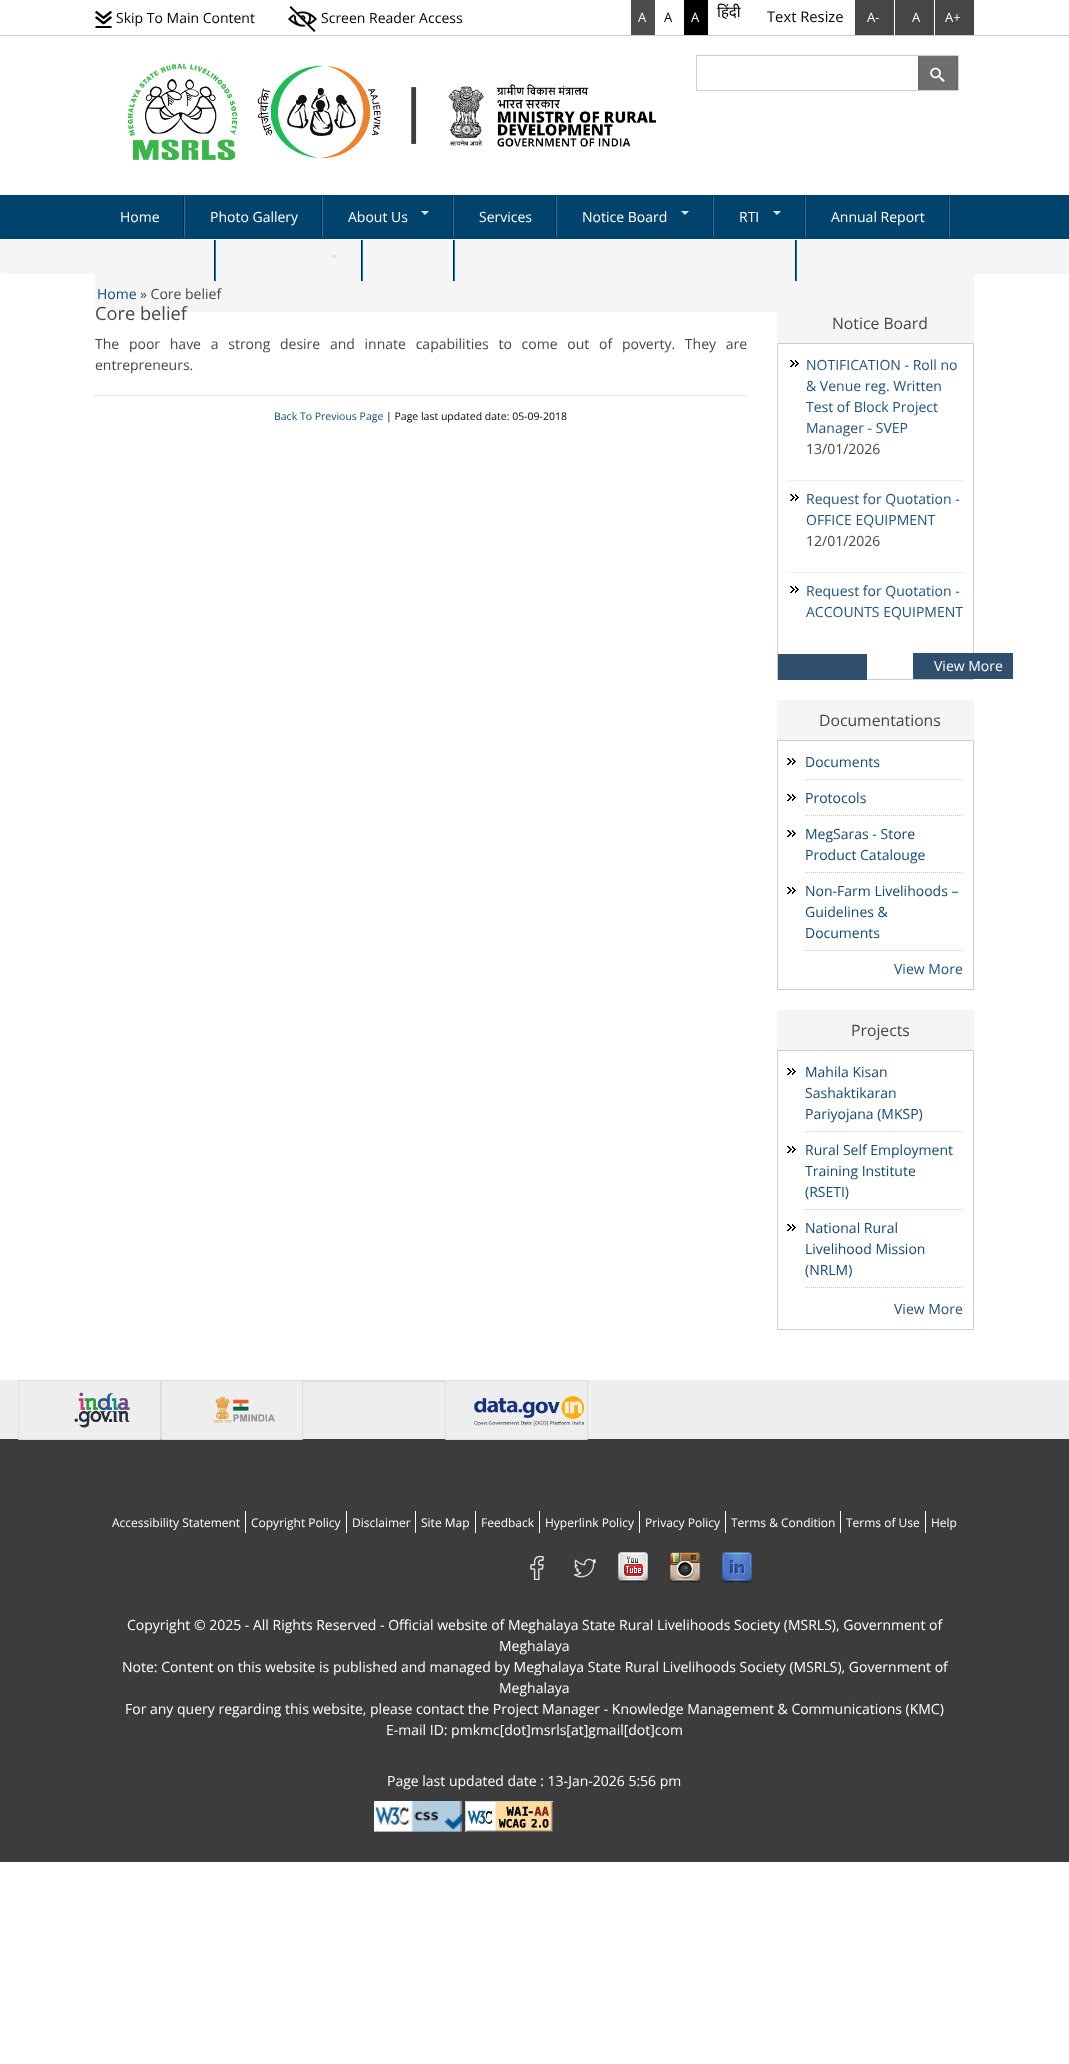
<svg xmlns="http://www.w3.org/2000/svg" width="1069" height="2064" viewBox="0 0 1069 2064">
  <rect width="100%" height="100%" fill="#fff"/>
  <path d="M0 35h1069v1H0z" fill="#ccc"/>
  <image x="95" y="11" width="17" height="17" href="img/1.png"/>
  <image x="288" y="6" width="29" height="26" href="img/2.png"/>
  <path d="M631 0h24v35H631z" fill="#4c4c4c"/>
  <path d="M684 0h24v35H684z" fill="#000"/>
  <path d="M855 0h39v35H855z" fill="#464646"/>
  <path d="M895 0h39v35H895z" fill="#464646"/>
  <path d="M935 0h39v35H935z" fill="#464646"/>
  <image x="127" y="63" width="529" height="97" href="img/3.png"/>
  <path d="M696.5 55.5h262v35H696.5z" fill="none" stroke="#ccc"/>
  <image x="918" y="56" width="40" height="34" href="img/4.png"/>
  <path d="M0 195h1069v44H0z" fill="#00446d"/>
  <image x="183" y="196" width="2" height="41" href="img/5.png"/>
  <image x="321" y="196" width="2" height="41" href="img/5.png"/>
  <image x="452" y="196" width="2" height="41" href="img/5.png"/>
  <path d="M421 211H429L425 215Z" fill="#ceebfd"/>
  <image x="555" y="196" width="2" height="41" href="img/5.png"/>
  <image x="712" y="196" width="2" height="41" href="img/5.png"/>
  <path d="M681 211H689L685 215Z" fill="#ceebfd"/>
  <image x="804" y="196" width="2" height="41" href="img/5.png"/>
  <path d="M773 211H781L777 215Z" fill="#ceebfd"/>
  <image x="948" y="196" width="2" height="41" href="img/5.png"/>
  <rect y="239" width="1069" height="35" rx="4" fill="#f5f5f5"/>
  <rect x="95" y="239" width="879" height="73" rx="4" fill="#f5f5f5"/>
  <image x="214" y="240" width="2" height="41" href="img/5.png"/>
  <image x="361" y="240" width="2" height="41" href="img/5.png"/>
  <path d="M330 255H338L334 259Z" fill="#ceebfd"/>
  <image x="453" y="240" width="2" height="41" href="img/5.png"/>
  <image x="795" y="240" width="2" height="41" href="img/5.png"/>
  <path d="M95 395.5H747" fill="none" stroke="#ccc" stroke-dasharray="1 1"/>
  <path d="M777 309h197v34H777z" fill="#f5f5f5"/>
  <path d="M777.5 343.5h196v336H777.5z" fill="none" stroke="#ccc"/>
  <image x="790" y="360" width="9" height="7" href="img/6.png"/>
  <path d="M788 480.5H963" fill="none" stroke="#e0dfdf" stroke-dasharray="1 1"/>
  <image x="790" y="494" width="9" height="7" href="img/6.png"/>
  <path d="M788 572.5H963" fill="none" stroke="#e0dfdf" stroke-dasharray="1 1"/>
  <image x="790" y="586" width="9" height="7" href="img/6.png"/>
  <path d="M778 654h89v26H778z" fill="#304f6e"/>
  <path d="M913 653h100v26H913z" fill="#304f6e"/>
  <path d="M777 700h197v40H777z" fill="#f5f5f5"/>
  <path d="M777.5 740.5h196v249H777.5z" fill="none" stroke="#ccc"/>
  <path d="M805 779.5H963" fill="none" stroke="#ccc" stroke-dasharray="1 1"/>
  <image x="787" y="758" width="9" height="7" href="img/6.png"/>
  <path d="M805 815.5H963" fill="none" stroke="#ccc" stroke-dasharray="1 1"/>
  <image x="787" y="794" width="9" height="7" href="img/6.png"/>
  <path d="M805 872.5H963" fill="none" stroke="#ccc" stroke-dasharray="1 1"/>
  <image x="787" y="830" width="9" height="7" href="img/6.png"/>
  <path d="M805 950.5H963" fill="none" stroke="#ccc" stroke-dasharray="1 1"/>
  <image x="787" y="887" width="9" height="7" href="img/6.png"/>
  <path d="M777 1010h197v40H777z" fill="#f5f5f5"/>
  <path d="M777.5 1050.5h196v279H777.5z" fill="none" stroke="#ccc"/>
  <path d="M805 1131.5H963" fill="none" stroke="#ccc" stroke-dasharray="1 1"/>
  <image x="787" y="1068" width="9" height="7" href="img/6.png"/>
  <path d="M805 1209.5H963" fill="none" stroke="#ccc" stroke-dasharray="1 1"/>
  <image x="787" y="1146" width="9" height="7" href="img/6.png"/>
  <path d="M805 1287.5H963" fill="none" stroke="#ccc" stroke-dasharray="1 1"/>
  <image x="787" y="1224" width="9" height="7" href="img/6.png"/>
  <path d="M0 1380h1069v59H0z" fill="#eee"/>
  <path d="M0 1439h1069v423H0z" fill="#3c3c3c"/>
  <path d="M18.5 1380.5h142v59H18.5z" fill="none" stroke="#ddd"/>
  <image x="74" y="1392" width="56" height="36" href="img/7.png"/>
  <path d="M161.5 1380.5h141v59H161.5z" fill="none" stroke="#ddd"/>
  <image x="212" y="1396" width="63" height="27" href="img/8.png"/>
  <path d="M303 1380h142v2H303z" fill="#ddd"/>
  <path d="M445.5 1380.5h142v59H445.5z" fill="none" stroke="#ddd"/>
  <image x="474" y="1396" width="110" height="30" href="img/9.png"/>
  <path d="M245 1511h1v22H245z" fill="#fff"/>
  <path d="M346 1511h1v22H346z" fill="#fff"/>
  <path d="M415 1511h1v22H415z" fill="#fff"/>
  <path d="M475 1511h1v22H475z" fill="#fff"/>
  <path d="M539 1511h1v22H539z" fill="#fff"/>
  <path d="M639 1511h1v22H639z" fill="#fff"/>
  <path d="M725 1511h1v22H725z" fill="#fff"/>
  <path d="M840 1511h1v22H840z" fill="#fff"/>
  <path d="M925 1511h1v22H925z" fill="#fff"/>
  <image x="530" y="1556" width="14" height="24" href="img/10.png"/>
  <image x="574" y="1558" width="22" height="20" href="img/11.png"/>
  <image x="618" y="1552" width="30" height="31" href="img/12.png"/>
  <image x="670" y="1552" width="30" height="31" href="img/13.png"/>
  <image x="721" y="1552" width="32" height="32" href="img/14.png"/>
  <image x="374" y="1801" width="88" height="31" href="img/15.png"/>
  <image x="465" y="1801" width="88" height="31" href="img/16.png"/>
  <g font-family="Open Sans" font-size="14" fill="#000">
    <text x="116" y="23">Skip To Main Content</text>
    <text x="321" y="23">Screen Reader Access</text>
  </g>
  <text x="638" y="22" font-family="Open Sans" font-size="13" fill="#fff">A</text>
  <text x="664" y="22" font-family="Open Sans" font-size="13" fill="#000">A</text>
  <text x="691" y="22" font-family="Open Sans" font-size="13" fill="#fff">A</text>
  <text x="717" y="17" font-family="Noto Sans" font-size="15" fill="#000">हिंदी</text>
  <text x="767" y="22" font-family="Open Sans" font-size="14.75" fill="#000">Text Resize</text>
  <g font-family="Open Sans" font-size="13" fill="#fff">
    <text x="867" y="22">A-</text>
    <text x="912" y="22">A</text>
    <text x="945" y="22">A+</text>
  </g>
  <g font-family="Open Sans" font-size="14" fill="#fff">
    <text x="120" y="222">Home</text>
    <text x="210" y="222">Photo Gallery</text>
    <text x="348" y="222">About Us</text>
    <text x="479" y="222">Services</text>
    <text x="582" y="222">Notice Board</text>
    <text x="739" y="222">RTI</text>
    <text x="831" y="222">Annual Report</text>
  </g>
  <text x="97" y="299" font-family="Open Sans" font-size="14" fill="#154773">Home</text>
  <text x="140" y="299" font-family="Open Sans" font-size="14" fill="#464646">» Core belief</text>
  <text x="95" y="320" font-family="Open Sans" font-size="18.25" fill="#464646">Core belief</text>
  <g font-family="Open Sans" font-size="14" fill="#464646">
    <text x="95" y="349" word-spacing="6.1">The poor have a strong desire and innate capabilities to come out of poverty. They are</text>
    <text x="95" y="370">entrepreneurs.</text>
  </g>
  <text x="274" y="420" font-family="Open Sans" font-size="10.5" fill="#154773">Back To Previous Page</text>
  <text x="386" y="420" font-family="Open Sans" font-size="10.5" fill="#000">| Page last updated date: 05-09-2018</text>
  <text x="832" y="329" font-family="Open Sans" font-size="15.75" fill="#464646">Notice Board</text>
  <g font-family="Open Sans" font-size="14" fill="#23527c">
    <text x="806" y="370">NOTIFICATION - Roll no</text>
    <text x="806" y="391">&amp; Venue reg. Written</text>
    <text x="806" y="412">Test of Block Project</text>
    <text x="806" y="433">Manager - SVEP</text>
  </g>
  <text x="806" y="454" font-family="Open Sans" font-size="14" fill="#464646">13/01/2026</text>
  <g font-family="Open Sans" font-size="14" fill="#23527c">
    <text x="806" y="504">Request for Quotation -</text>
    <text x="806" y="525">OFFICE EQUIPMENT</text>
  </g>
  <text x="806" y="546" font-family="Open Sans" font-size="14" fill="#464646">12/01/2026</text>
  <g font-family="Open Sans" font-size="14" fill="#23527c">
    <text x="806" y="596">Request for Quotation -</text>
    <text x="806" y="617">ACCOUNTS EQUIPMENT</text>
  </g>
  <text x="934" y="671" font-family="Open Sans" font-size="14" fill="#fff">View More</text>
  <text x="819" y="726" font-family="Open Sans" font-size="15.75" fill="#464646">Documentations</text>
  <g font-family="Open Sans" font-size="14" fill="#154773">
    <text x="805" y="767">Documents</text>
    <text x="805" y="803">Protocols</text>
    <text x="805" y="839">MegSaras - Store</text>
    <text x="805" y="860">Product Catalouge</text>
    <text x="805" y="896">Non-Farm Livelihoods –</text>
    <text x="805" y="917">Guidelines &amp;</text>
    <text x="805" y="938">Documents</text>
  </g>
  <text x="894" y="974" font-family="Open Sans" font-size="14" fill="#23527c">View More</text>
  <text x="851" y="1036" font-family="Open Sans" font-size="15.75" fill="#464646">Projects</text>
  <g font-family="Open Sans" font-size="14" fill="#154773">
    <text x="805" y="1077">Mahila Kisan</text>
    <text x="805" y="1098">Sashaktikaran</text>
    <text x="805" y="1119">Pariyojana (MKSP)</text>
    <text x="805" y="1155">Rural Self Employment</text>
    <text x="805" y="1176">Training Institute</text>
    <text x="805" y="1197">(RSETI)</text>
    <text x="805" y="1233">National Rural</text>
    <text x="805" y="1254">Livelihood Mission</text>
    <text x="805" y="1275">(NRLM)</text>
  </g>
  <text x="894" y="1314" font-family="Open Sans" font-size="14" fill="#23527c">View More</text>
  <g font-family="Open Sans" font-size="12" fill="#fff">
    <text x="112" y="1527">Accessibility Statement</text>
    <text x="251" y="1527">Copyright Policy</text>
    <text x="352" y="1527">Disclaimer</text>
    <text x="421" y="1527">Site Map</text>
    <text x="481" y="1527">Feedback</text>
    <text x="545" y="1527">Hyperlink Policy</text>
    <text x="645" y="1527">Privacy Policy</text>
    <text x="731" y="1527">Terms &amp; Condition</text>
    <text x="846" y="1527">Terms of Use</text>
    <text x="931" y="1527">Help</text>
  </g>
  <g font-family="Open Sans" font-size="14" fill="#fff">
    <text x="127" y="1630">Copyright © 2025 - All Rights Reserved - Official website of Meghalaya State Rural Livelihoods Society (MSRLS), Government of</text>
    <text x="499" y="1651">Meghalaya</text>
    <text x="122" y="1672">Note: Content on this website is published and managed by Meghalaya State Rural Livelihoods Society (MSRLS), Government of</text>
    <text x="499" y="1693">Meghalaya</text>
    <text x="125" y="1714">For any query regarding this website, please contact the Project Manager - Knowledge Management &amp; Communications (KMC)</text>
    <text x="386" y="1735">E-mail ID: pmkmc[dot]msrls[at]gmail[dot]com</text>
    <text x="387" y="1786">Page last updated date : 13-Jan-2026 5:56 pm</text>
  </g>
</svg>
